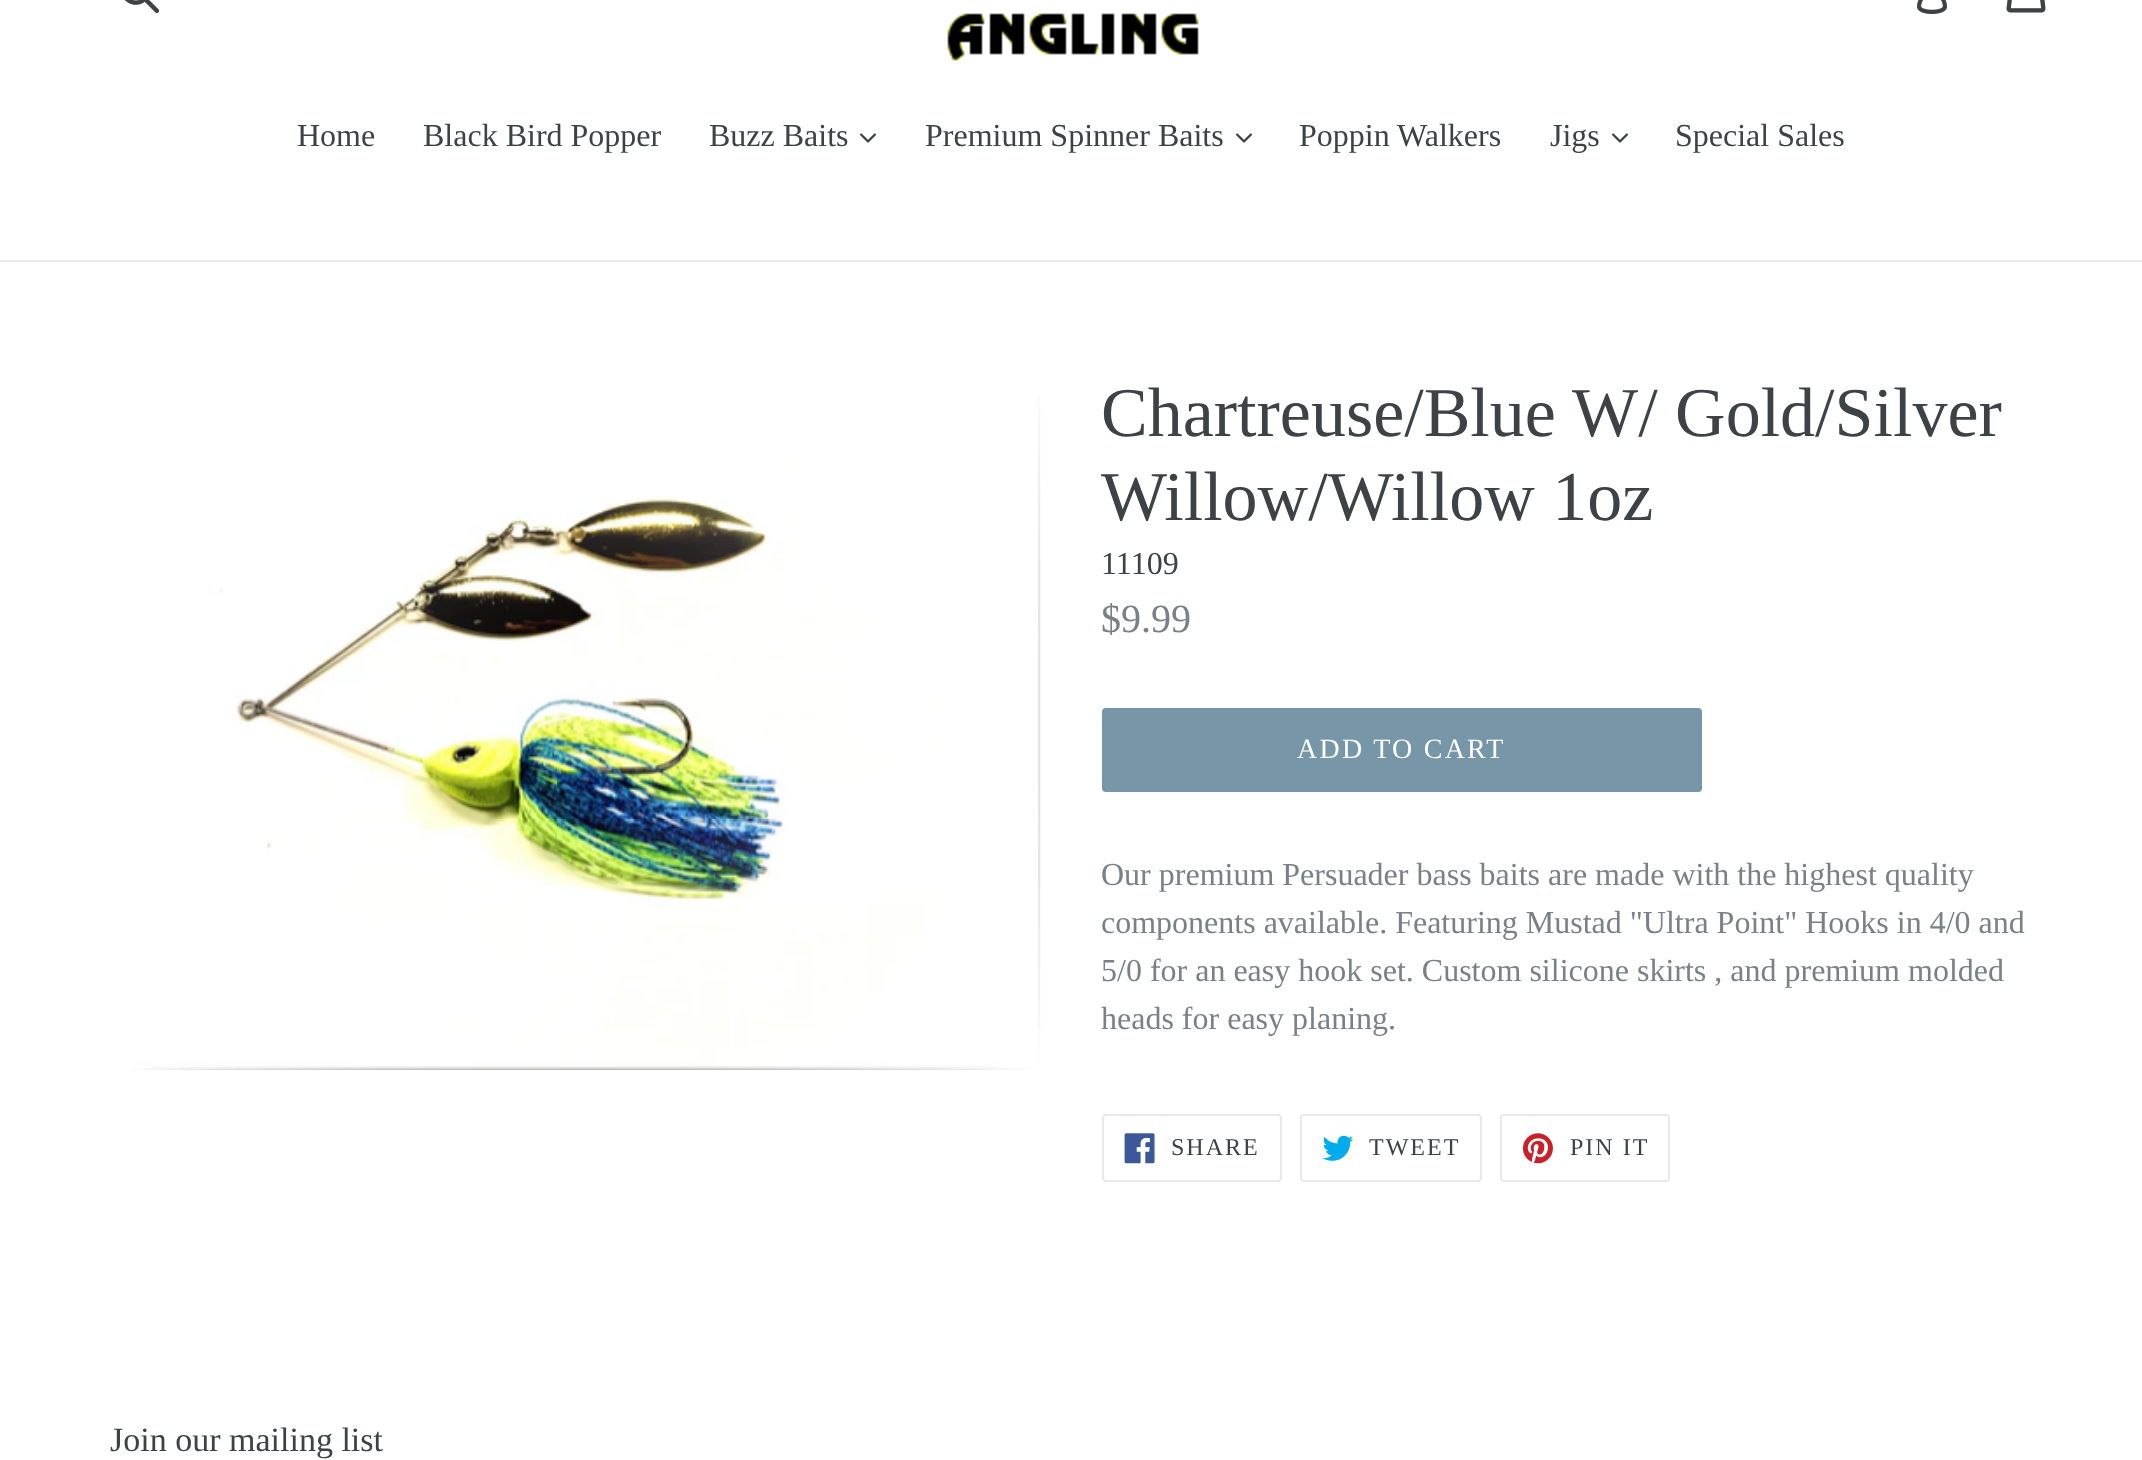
<svg xmlns="http://www.w3.org/2000/svg" width="2142" height="1460" viewBox="0 0 2142 1460">
  <rect width="100%" height="100%" fill="#fff"/>
  <image x="124" y="0" width="36" height="14" href="img/1.png"/>
  <image x="1917" y="0" width="31" height="14" href="img/2.png"/>
  <image x="2006" y="0" width="40" height="13" href="img/3.png"/>
  <image x="947" y="13" width="252" height="48" href="img/4.png"/>
  <path d="M0 260h2142v2H0z" fill="#e8e9eb"/>
  <image x="860" y="133" width="16" height="10" href="img/5.png"/>
  <image x="1236" y="133" width="16" height="10" href="img/5.png"/>
  <image x="1612" y="133" width="16" height="10" href="img/5.png"/>
  <image x="131" y="394" width="910" height="676" href="img/6.png"/>
  <rect x="1102" y="708" width="600" height="84" rx="4" fill="#7796a8"/>
  <rect x="1103" y="1115" width="178" height="66" rx="3" fill="none" stroke="#e8e9eb" stroke-width="2"/>
  <image x="1124" y="1133" width="31" height="31" href="img/7.png"/>
  <rect x="1301" y="1115" width="180" height="66" rx="3" fill="none" stroke="#e8e9eb" stroke-width="2"/>
  <image x="1322" y="1135" width="32" height="26" href="img/8.png"/>
  <rect x="1501" y="1115" width="168" height="66" rx="3" fill="none" stroke="#e8e9eb" stroke-width="2"/>
  <image x="1522" y="1133" width="31" height="31" href="img/9.png"/>
  <g font-family="Liberation Serif" font-size="32" fill="#3d4246">
    <text x="297" y="146">Home</text>
    <text x="423" y="146">Black Bird Popper</text>
    <text x="709" y="146">Buzz Baits</text>
    <text x="925" y="146">Premium Spinner Baits</text>
    <text x="1299" y="146">Poppin Walkers</text>
    <text x="1550" y="146">Jigs</text>
    <text x="1675" y="146">Special Sales</text>
  </g>
  <g font-family="Liberation Serif" font-size="70" fill="#3d4246">
    <text x="1101" y="436">Chartreuse/Blue W/ Gold/Silver</text>
    <text x="1101" y="520">Willow/Willow 1oz</text>
  </g>
  <text x="1101" y="574" font-family="Liberation Serif" font-size="32" fill="#3d4246">11109</text>
  <text x="1101" y="632" font-family="Liberation Serif" font-size="40" fill="#788188">$9.99</text>
  <text x="1297" y="758" font-family="Liberation Serif" font-size="28" letter-spacing="2.25" fill="#fff">ADD TO CART</text>
  <g font-family="Liberation Serif" font-size="32" fill="#788188">
    <text x="1101" y="885">Our premium Persuader bass baits are made with the highest quality</text>
    <text x="1101" y="933">components available. Featuring Mustad "Ultra Point" Hooks in 4/0 and</text>
    <text x="1101" y="981">5/0 for an easy hook set. Custom silicone skirts , and premium molded</text>
    <text x="1101" y="1029">heads for easy planing.</text>
  </g>
  <g font-family="Liberation Serif" font-size="24" letter-spacing="2" fill="#3d4246">
    <text x="1171" y="1155">SHARE</text>
    <text x="1369" y="1155">TWEET</text>
    <text x="1570" y="1155">PIN IT</text>
  </g>
  <text x="110" y="1451" font-family="Liberation Serif" font-size="34" fill="#3d4246">Join our mailing list</text>
</svg>
